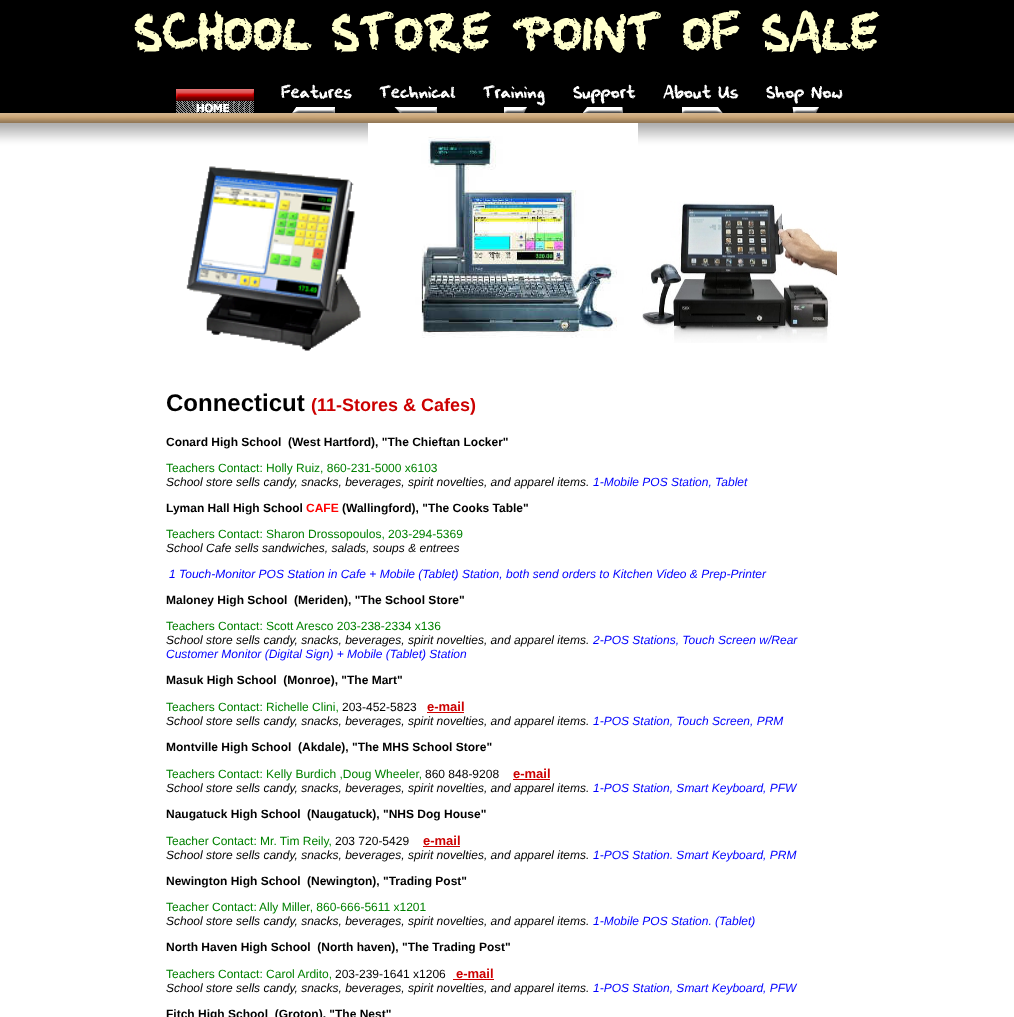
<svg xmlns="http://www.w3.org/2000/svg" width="1014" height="1017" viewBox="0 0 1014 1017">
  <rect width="100%" height="100%" fill="#000"/>
  <image x="134" y="10" width="746" height="44" href="img/1.png"/>
  <image x="176" y="89" width="78" height="24" href="img/2.png"/>
  <image x="281" y="84" width="71" height="29" href="img/3.png"/>
  <image x="379" y="85" width="77" height="28" href="img/4.png"/>
  <image x="483" y="85" width="62" height="28" href="img/5.png"/>
  <image x="573" y="84" width="63" height="29" href="img/6.png"/>
  <image x="663" y="84" width="76" height="29" href="img/7.png"/>
  <image x="766" y="86" width="77" height="27" href="img/8.png"/>
  <image x="0" y="113" width="1014" height="10" href="img/9.png"/>
  <image x="0" y="123" width="1014" height="894" href="img/10.png"/>
  <image x="186" y="166" width="175" height="185" href="img/11.png"/>
  <image x="368" y="123" width="270" height="215" href="img/12.png"/>
  <image x="642" y="201" width="195" height="142" href="img/13.png"/>
  <path d="M427 712h37v1H427z" fill="#c00"/>
  <path d="M513 779h37v1H513z" fill="#c00"/>
  <path d="M423 846h37v1H423z" fill="#c00"/>
  <path d="M453 979h41v1H453z" fill="#c00"/>
  <text x="166" y="411" font-family="Liberation Sans" font-size="24" font-weight="bold" fill="#000">Connecticut</text>
  <text x="311" y="411" font-family="Liberation Sans" font-size="18" font-weight="bold" fill="#c00">(11-Stores &amp; Cafes)</text>
  <text x="166" y="446" font-family="Liberation Sans" font-size="12" font-weight="bold" fill="#000" xml:space="preserve">Conard High School  (West Hartford), "The Chieftan Locker"</text>
  <text x="166" y="472" font-family="Liberation Sans" font-size="12" fill="#008000">Teachers Contact: Holly Ruiz, 860-231-5000 x6103</text>
  <text x="166" y="486" font-family="Liberation Sans" font-size="12" font-style="italic" fill="#000">School store sells candy, snacks, beverages, spirit novelties, and apparel items.</text>
  <text x="593" y="486" font-family="Liberation Sans" font-size="12" font-style="italic" fill="#00f">1-Mobile POS Station, Tablet</text>
  <text x="166" y="512" font-family="Liberation Sans" font-size="12" font-weight="bold" fill="#000">Lyman Hall High School</text>
  <text x="306" y="512" font-family="Liberation Sans" font-size="12" font-weight="bold" fill="#f00">CAFE</text>
  <text x="342" y="512" font-family="Liberation Sans" font-size="12" font-weight="bold" fill="#000">(Wallingford), "The Cooks Table"</text>
  <text x="166" y="538" font-family="Liberation Sans" font-size="12" fill="#008000">Teachers Contact: Sharon Drossopoulos, 203-294-5369</text>
  <text x="166" y="552" font-family="Liberation Sans" font-size="12" font-style="italic" fill="#000">School Cafe sells sandwiches, salads, soups &amp; entrees</text>
  <text x="169" y="578" font-family="Liberation Sans" font-size="12" font-style="italic" fill="#00f">1 Touch-Monitor POS Station in Cafe + Mobile (Tablet) Station, both send orders to Kitchen Video &amp; Prep-Printer</text>
  <text x="166" y="604" font-family="Liberation Sans" font-size="12" font-weight="bold" fill="#000" xml:space="preserve">Maloney High School  (Meriden), "The School Store"</text>
  <text x="166" y="630" font-family="Liberation Sans" font-size="12" fill="#008000">Teachers Contact: Scott Aresco 203-238-2334 x136</text>
  <text x="166" y="644" font-family="Liberation Sans" font-size="12" font-style="italic" fill="#000">School store sells candy, snacks, beverages, spirit novelties, and apparel items.</text>
  <g font-family="Liberation Sans" font-size="12" font-style="italic" fill="#00f">
    <text x="593" y="644">2-POS Stations, Touch Screen w/Rear</text>
    <text x="166" y="658">Customer Monitor (Digital Sign) + Mobile (Tablet) Station</text>
  </g>
  <text x="166" y="684" font-family="Liberation Sans" font-size="12" font-weight="bold" fill="#000" xml:space="preserve">Masuk High School  (Monroe), "The Mart"</text>
  <text x="166" y="711" font-family="Liberation Sans" font-size="12" fill="#008000">Teachers Contact: Richelle Clini,</text>
  <text x="342" y="711" font-family="Liberation Sans" font-size="12" fill="#000">203-452-5823</text>
  <text x="427" y="711" font-family="Liberation Sans" font-size="13" font-weight="bold" fill="#c00">e-mail</text>
  <text x="166" y="725" font-family="Liberation Sans" font-size="12" font-style="italic" fill="#000">School store sells candy, snacks, beverages, spirit novelties, and apparel items.</text>
  <text x="593" y="725" font-family="Liberation Sans" font-size="12" font-style="italic" fill="#00f">1-POS Station, Touch Screen, PRM</text>
  <text x="166" y="751" font-family="Liberation Sans" font-size="12" font-weight="bold" fill="#000" xml:space="preserve">Montville High School  (Akdale), "The MHS School Store"</text>
  <text x="166" y="778" font-family="Liberation Sans" font-size="12" fill="#008000">Teachers Contact: Kelly Burdich ,Doug Wheeler,</text>
  <text x="425" y="778" font-family="Liberation Sans" font-size="12" fill="#000">860 848-9208</text>
  <text x="513" y="778" font-family="Liberation Sans" font-size="13" font-weight="bold" fill="#c00">e-mail</text>
  <text x="166" y="792" font-family="Liberation Sans" font-size="12" font-style="italic" fill="#000">School store sells candy, snacks, beverages, spirit novelties, and apparel items.</text>
  <text x="593" y="792" font-family="Liberation Sans" font-size="12" font-style="italic" fill="#00f">1-POS Station, Smart Keyboard, PFW</text>
  <g font-family="Liberation Sans" font-size="12" font-weight="bold" fill="#000">
    <text x="166" y="818">Naugatuck High School</text>
    <text x="307" y="818">(Naugatuck), "NHS Dog House"</text>
  </g>
  <text x="166" y="845" font-family="Liberation Sans" font-size="12" fill="#008000">Teacher Contact: Mr. Tim Reily,</text>
  <text x="335" y="845" font-family="Liberation Sans" font-size="12" fill="#000">203 720-5429</text>
  <text x="423" y="845" font-family="Liberation Sans" font-size="13" font-weight="bold" fill="#c00">e-mail</text>
  <text x="166" y="859" font-family="Liberation Sans" font-size="12" font-style="italic" fill="#000">School store sells candy, snacks, beverages, spirit novelties, and apparel items.</text>
  <text x="593" y="859" font-family="Liberation Sans" font-size="12" font-style="italic" fill="#00f">1-POS Station. Smart Keyboard, PRM</text>
  <g font-family="Liberation Sans" font-size="12" font-weight="bold" fill="#000">
    <text x="166" y="885">Newington High School</text>
    <text x="307" y="885">(Newington), "Trading Post"</text>
  </g>
  <g font-family="Liberation Sans" font-size="12" fill="#008000">
    <text x="166" y="911">Teacher Contact:</text>
    <text x="259" y="911">Ally Miller, 860-666-5611 x1201</text>
  </g>
  <text x="166" y="925" font-family="Liberation Sans" font-size="12" font-style="italic" fill="#000">School store sells candy, snacks, beverages, spirit novelties, and apparel items.</text>
  <text x="593" y="925" font-family="Liberation Sans" font-size="12" font-style="italic" fill="#00f">1-Mobile POS Station. (Tablet)</text>
  <text x="166" y="951" font-family="Liberation Sans" font-size="12" font-weight="bold" fill="#000" xml:space="preserve">North Haven High School  (North haven), "The Trading Post"</text>
  <text x="166" y="978" font-family="Liberation Sans" font-size="12" fill="#008000">Teachers Contact: Carol Ardito,</text>
  <text x="335" y="978" font-family="Liberation Sans" font-size="12" fill="#000">203-239-1641 x1206</text>
  <text x="456" y="978" font-family="Liberation Sans" font-size="13" font-weight="bold" fill="#c00">e-mail</text>
  <text x="166" y="992" font-family="Liberation Sans" font-size="12" font-style="italic" fill="#000">School store sells candy, snacks, beverages, spirit novelties, and apparel items.</text>
  <text x="593" y="992" font-family="Liberation Sans" font-size="12" font-style="italic" fill="#00f">1-POS Station, Smart Keyboard, PFW</text>
  <text x="166" y="1018" font-family="Liberation Sans" font-size="12" font-weight="bold" fill="#000" xml:space="preserve">Fitch High School  (Groton), "The Nest"</text>
</svg>
